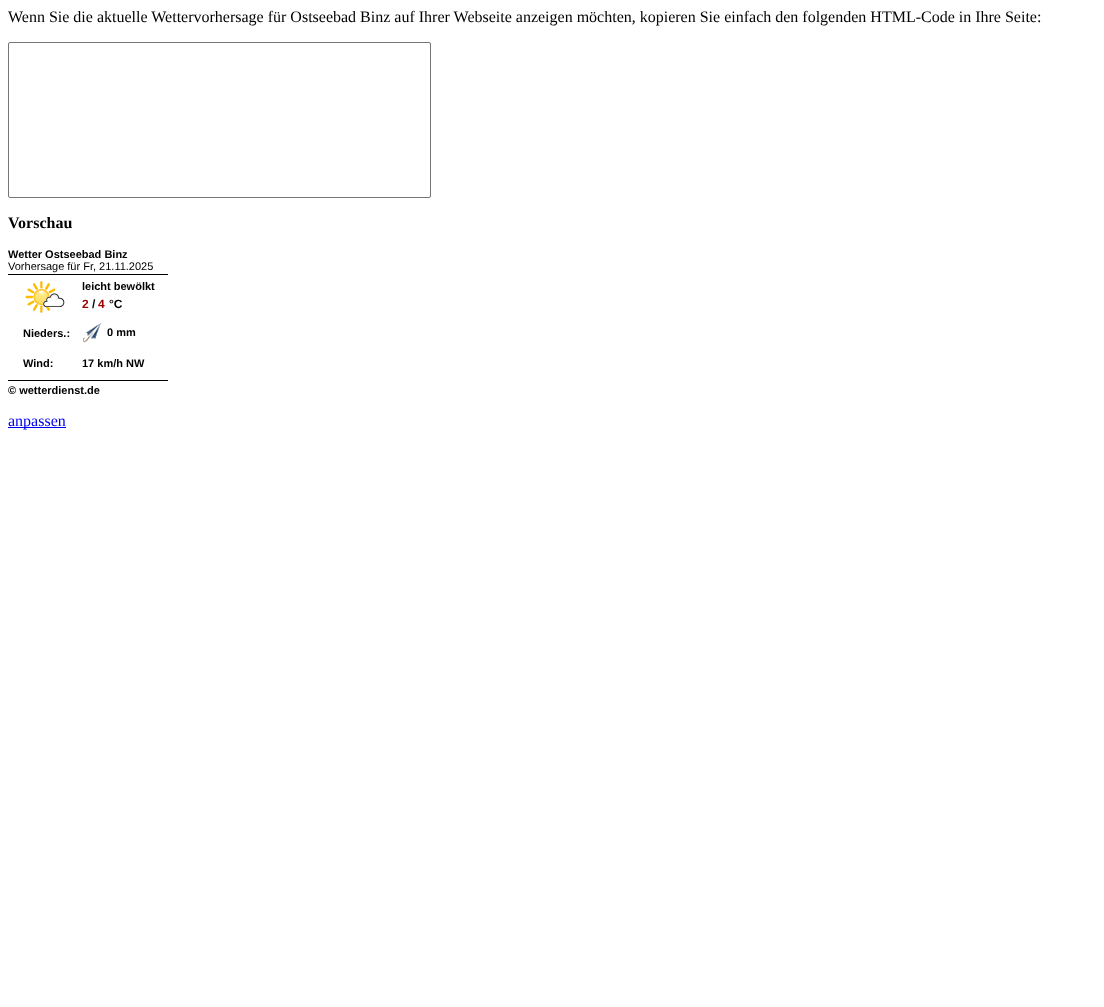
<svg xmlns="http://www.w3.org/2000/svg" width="1104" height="1007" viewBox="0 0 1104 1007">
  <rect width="100%" height="100%" fill="#fff"/>
  <rect x="8.5" y="42.5" width="422" height="155" rx="1.5" fill="none" stroke="#767676"/>
  <path d="M8 274h160v1H8z" fill="#000"/>
  <image x="25" y="281" width="40" height="32" href="img/1.png"/>
  <image x="83" y="323" width="18" height="20" href="img/2.png"/>
  <path d="M8 380h160v1H8z" fill="#000"/>
  <path d="M8 427h58v1H8z" fill="#00e"/>
  <text x="8" y="22" font-family="Liberation Serif" font-size="16" fill="#000">Wenn Sie die aktuelle Wettervorhersage für Ostseebad Binz auf Ihrer Webseite anzeigen möchten, kopieren Sie einfach den folgenden HTML-Code in Ihre Seite:</text>
  <text x="8" y="228" font-family="Liberation Serif" font-size="16" font-weight="bold" fill="#000">Vorschau</text>
  <text x="8" y="258" font-family="Liberation Sans" font-size="11" font-weight="bold" fill="#000">Wetter Ostseebad Binz</text>
  <text x="8" y="270" font-family="Liberation Sans" font-size="11" fill="#000">Vorhersage für Fr, 21.11.2025</text>
  <text x="82" y="290" font-family="Liberation Sans" font-size="11" font-weight="bold" fill="#000">leicht bewölkt</text>
  <text x="82" y="308" font-family="Liberation Sans" font-size="12" font-weight="bold" fill="#900">2</text>
  <text x="92" y="308" font-family="Liberation Sans" font-size="12" font-weight="bold" fill="#000">/</text>
  <text x="98" y="308" font-family="Liberation Sans" font-size="12" font-weight="bold" fill="#900">4</text>
  <text x="109" y="308" font-family="Liberation Sans" font-size="12" font-weight="bold" fill="#000">°C</text>
  <g font-family="Liberation Sans" font-size="11" font-weight="bold" fill="#000">
    <text x="23" y="337">Nieders.:</text>
    <text x="107" y="336">0 mm</text>
    <text x="23" y="367">Wind:</text>
    <text x="82" y="367">17 km/h NW</text>
    <text x="8" y="394">© wetterdienst.de</text>
  </g>
  <text x="8" y="426" font-family="Liberation Serif" font-size="16" fill="#00e">anpassen</text>
</svg>
